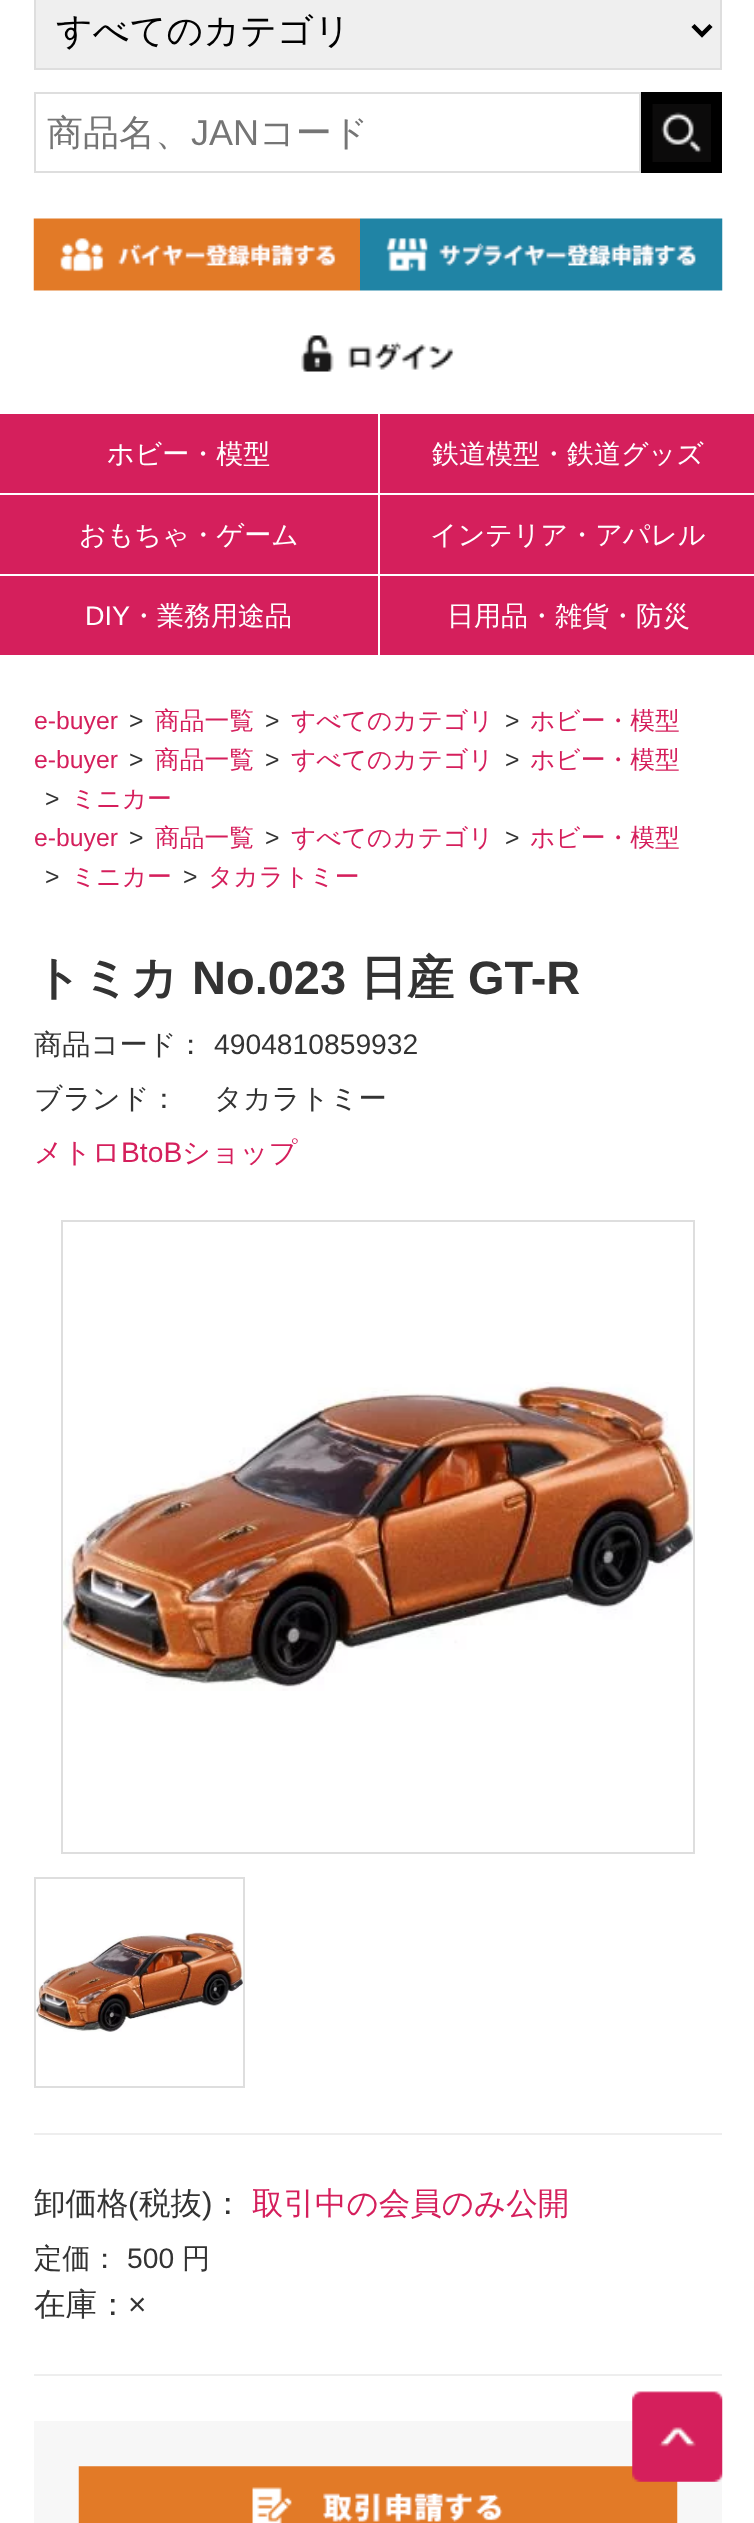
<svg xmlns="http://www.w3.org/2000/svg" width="754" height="2523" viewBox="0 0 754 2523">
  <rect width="100%" height="100%" fill="#fff"/>
  <path d="M35 -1h686v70H35z" fill="#efefef" stroke="#dedede" stroke-width="2"/>
  <path d="M693 25.5L702 34.5L711 25.5" fill="none" stroke="#000" stroke-width="4.5"/>
  <path d="M35 93h605v79H35z" fill="none" stroke="#dedede" stroke-width="2"/>
  <path d="M641 92h81v81H641z" fill="#000"/>
  <image x="652" y="104" width="59" height="58" href="img/1.png"/>
  <image x="33" y="218" width="327" height="73" href="img/2.png"/>
  <image x="360" y="218" width="363" height="73" href="img/3.png"/>
  <image x="301" y="335" width="154" height="37" href="img/4.png"/>
  <path d="M0 414h754v241H0z" fill="#d51f5c"/>
  <path d="M0 493h754v2H0z" fill="#fff"/>
  <path d="M378 414h2v81H378z" fill="#fff"/>
  <path d="M0 574h754v2H0z" fill="#fff"/>
  <path d="M378 495h2v162H378z" fill="#fff"/>
  <path d="M62 1221h632v632H62z" fill="none" stroke="#dedede" stroke-width="2"/>
  <image x="63" y="1382" width="630" height="309" href="img/5.png"/>
  <path d="M35 1878h209v209H35z" fill="none" stroke="#dedede" stroke-width="2"/>
  <image x="36" y="1932" width="207" height="100" href="img/6.png"/>
  <path d="M34 2133h688v2H34z" fill="#eee"/>
  <path d="M34 2374h688v2H34z" fill="#eee"/>
  <path d="M34 2421h688v102H34z" fill="#f7f7f7"/>
  <image x="78" y="2466" width="600" height="57" href="img/7.png"/>
  <image x="632" y="2391" width="91" height="91" href="img/8.png"/>
  <text x="56" y="43" font-family="WenQuanYi Zen Hei" font-size="36" font-weight="500" fill="#000">すべてのカテゴリ</text>
  <text x="47" y="145" font-family="WenQuanYi Zen Hei" font-size="36" font-weight="500" fill="#757575">商品名、</text>
  <text x="191" y="145" font-family="Liberation Sans" font-size="36" fill="#757575">JAN</text>
  <text x="259" y="145" font-family="WenQuanYi Zen Hei" font-size="36" font-weight="500" fill="#757575">コード</text>
  <g font-family="WenQuanYi Zen Hei" font-size="27" font-weight="500" fill="#fff">
    <text x="107" y="463">ホビー・模型</text>
    <text x="432" y="463">鉄道模型・鉄道グッズ</text>
    <text x="79" y="544">おもちゃ・ゲーム</text>
    <text x="430" y="544">インテリア・アパレル</text>
  </g>
  <text x="85" y="625" font-family="Liberation Sans" font-size="27" fill="#fff">DIY</text>
  <g font-family="WenQuanYi Zen Hei" font-size="27" font-weight="500" fill="#fff">
    <text x="130" y="625">・業務用途品</text>
    <text x="447" y="625">日用品・雑貨・防災</text>
  </g>
  <text x="34" y="729" font-family="Liberation Sans" font-size="24.75" fill="#d51f5c">e-buyer</text>
  <text x="129" y="729" font-family="Liberation Sans" font-size="24.75" fill="#333">&gt;</text>
  <text x="155" y="729" font-family="WenQuanYi Zen Hei" font-size="24.75" font-weight="500" fill="#d51f5c">商品一覧</text>
  <text x="265" y="729" font-family="Liberation Sans" font-size="24.75" fill="#333">&gt;</text>
  <text x="291" y="729" font-family="WenQuanYi Zen Hei" font-size="24.75" font-weight="500" fill="#d51f5c">すべてのカテゴリ</text>
  <text x="505" y="729" font-family="Liberation Sans" font-size="24.75" fill="#333">&gt;</text>
  <text x="530" y="729" font-family="WenQuanYi Zen Hei" font-size="24.75" font-weight="500" fill="#d51f5c">ホビー・模型</text>
  <text x="34" y="768" font-family="Liberation Sans" font-size="24.75" fill="#d51f5c">e-buyer</text>
  <text x="129" y="768" font-family="Liberation Sans" font-size="24.75" fill="#333">&gt;</text>
  <text x="155" y="768" font-family="WenQuanYi Zen Hei" font-size="24.75" font-weight="500" fill="#d51f5c">商品一覧</text>
  <text x="265" y="768" font-family="Liberation Sans" font-size="24.75" fill="#333">&gt;</text>
  <text x="291" y="768" font-family="WenQuanYi Zen Hei" font-size="24.75" font-weight="500" fill="#d51f5c">すべてのカテゴリ</text>
  <text x="505" y="768" font-family="Liberation Sans" font-size="24.75" fill="#333">&gt;</text>
  <text x="530" y="768" font-family="WenQuanYi Zen Hei" font-size="24.75" font-weight="500" fill="#d51f5c">ホビー・模型</text>
  <text x="45" y="807" font-family="Liberation Sans" font-size="24.75" fill="#333">&gt;</text>
  <text x="71" y="807" font-family="WenQuanYi Zen Hei" font-size="24.75" font-weight="500" fill="#d51f5c">ミニカー</text>
  <text x="34" y="846" font-family="Liberation Sans" font-size="24.75" fill="#d51f5c">e-buyer</text>
  <text x="129" y="846" font-family="Liberation Sans" font-size="24.75" fill="#333">&gt;</text>
  <text x="155" y="846" font-family="WenQuanYi Zen Hei" font-size="24.75" font-weight="500" fill="#d51f5c">商品一覧</text>
  <text x="265" y="846" font-family="Liberation Sans" font-size="24.75" fill="#333">&gt;</text>
  <text x="291" y="846" font-family="WenQuanYi Zen Hei" font-size="24.75" font-weight="500" fill="#d51f5c">すべてのカテゴリ</text>
  <text x="505" y="846" font-family="Liberation Sans" font-size="24.75" fill="#333">&gt;</text>
  <text x="530" y="846" font-family="WenQuanYi Zen Hei" font-size="24.75" font-weight="500" fill="#d51f5c">ホビー・模型</text>
  <text x="45" y="885" font-family="Liberation Sans" font-size="24.75" fill="#333">&gt;</text>
  <text x="71" y="885" font-family="WenQuanYi Zen Hei" font-size="24.75" font-weight="500" fill="#d51f5c">ミニカー</text>
  <text x="183" y="885" font-family="Liberation Sans" font-size="24.75" fill="#333">&gt;</text>
  <text x="208" y="885" font-family="WenQuanYi Zen Hei" font-size="24.75" font-weight="500" fill="#d51f5c">タカラトミー</text>
  <text x="34" y="994" font-family="WenQuanYi Zen Hei" font-size="47" font-weight="bold" fill="#333">トミカ</text>
  <text x="192" y="994" font-family="Liberation Sans" font-size="47" font-weight="bold" fill="#333">No.023</text>
  <text x="360" y="994" font-family="WenQuanYi Zen Hei" font-size="47" font-weight="bold" fill="#333">日産</text>
  <text x="468" y="994" font-family="Liberation Sans" font-size="47" font-weight="bold" fill="#333">GT-R</text>
  <text x="34" y="1054" font-family="WenQuanYi Zen Hei" font-size="28.25" font-weight="500" fill="#333">商品コード：</text>
  <text x="214" y="1054" font-family="Liberation Sans" font-size="28.25" fill="#333">4904810859932</text>
  <g font-family="WenQuanYi Zen Hei" font-size="28.25" font-weight="500" fill="#333">
    <text x="34" y="1108">ブランド：</text>
    <text x="214" y="1108">タカラトミー</text>
  </g>
  <text x="34" y="1162" font-family="WenQuanYi Zen Hei" font-size="28.25" font-weight="500" fill="#d51f5c">メトロ</text>
  <text x="121" y="1162" font-family="Liberation Sans" font-size="28.25" fill="#d51f5c">BtoB</text>
  <text x="182" y="1162" font-family="WenQuanYi Zen Hei" font-size="28.25" font-weight="500" fill="#d51f5c">ショップ</text>
  <text x="34" y="2214" font-family="WenQuanYi Zen Hei" font-size="31.5" font-weight="500" fill="#333">卸価格</text>
  <text x="128" y="2214" font-family="Liberation Sans" font-size="31.5" fill="#333">(</text>
  <text x="139" y="2214" font-family="WenQuanYi Zen Hei" font-size="31.5" font-weight="500" fill="#333">税抜</text>
  <text x="202" y="2214" font-family="Liberation Sans" font-size="31.5" fill="#333">)</text>
  <text x="212" y="2214" font-family="WenQuanYi Zen Hei" font-size="31.5" font-weight="500" fill="#333">：</text>
  <text x="252" y="2214" font-family="WenQuanYi Zen Hei" font-size="31.5" font-weight="500" fill="#d51f5c">取引中の会員のみ公開</text>
  <text x="34" y="2268" font-family="WenQuanYi Zen Hei" font-size="28.25" font-weight="500" fill="#333">定価：</text>
  <text x="127" y="2268" font-family="Liberation Sans" font-size="28.25" fill="#333">500</text>
  <text x="182" y="2268" font-family="WenQuanYi Zen Hei" font-size="28.25" font-weight="500" fill="#333">円</text>
  <text x="34" y="2315" font-family="WenQuanYi Zen Hei" font-size="31.5" font-weight="500" fill="#333">在庫：</text>
  <text x="128" y="2315" font-family="Liberation Sans" font-size="31.5" fill="#333">×</text>
</svg>
